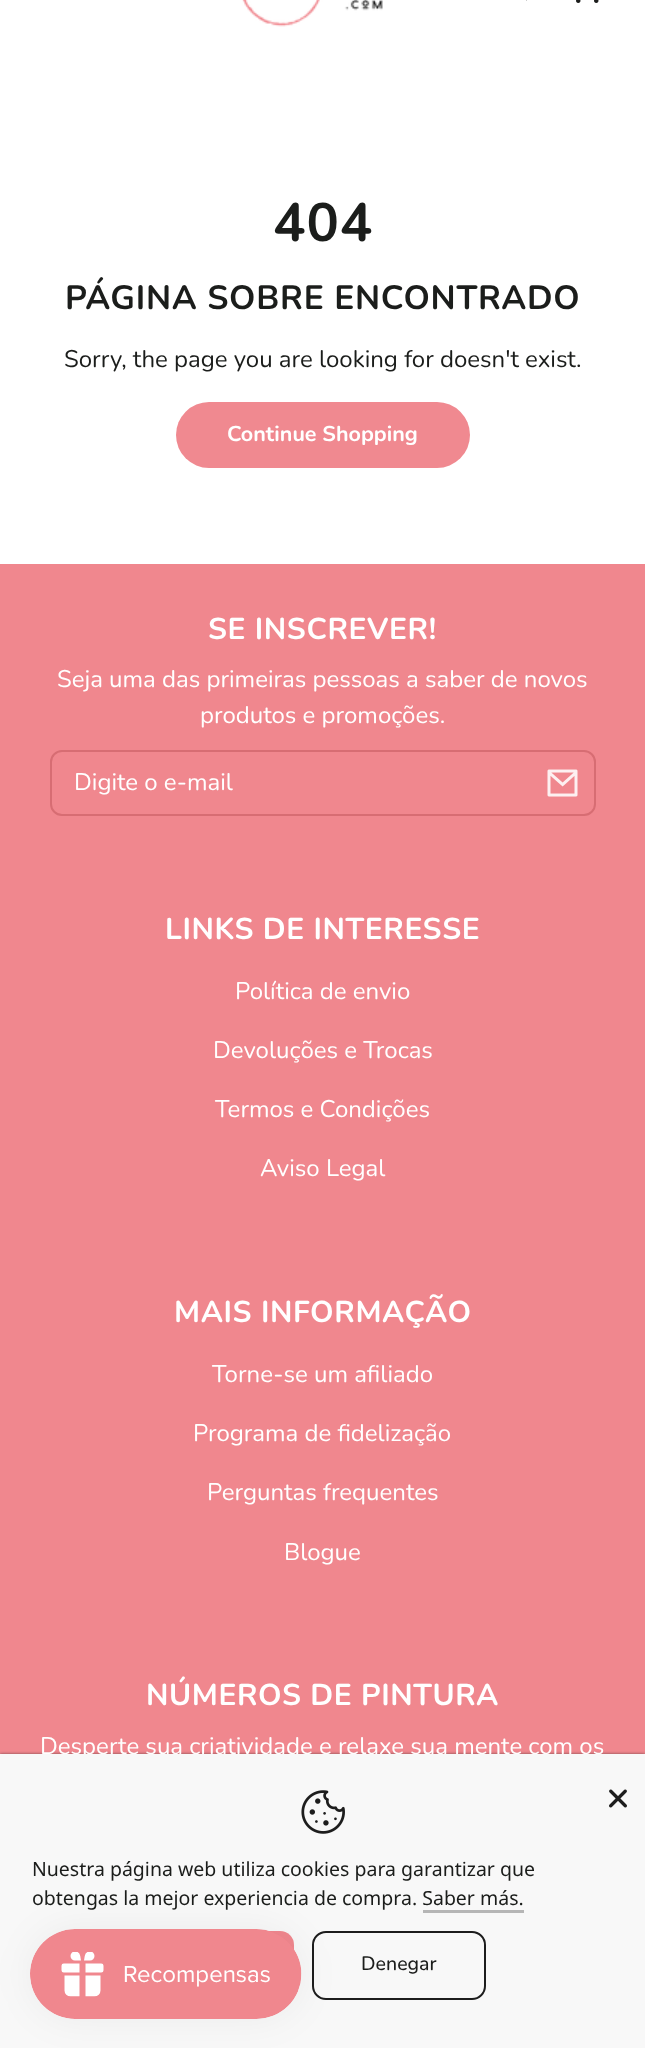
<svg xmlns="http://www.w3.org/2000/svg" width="645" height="2048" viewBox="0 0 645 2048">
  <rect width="100%" height="100%" fill="#fff"/>
  <image x="242" y="0" width="141" height="27" href="img/1.png"/>
  <path d="M526 0h1v1H526z" fill="#cdcdcd"/>
  <image x="576" y="0" width="23" height="3" href="img/2.png"/>
  <rect x="176" y="402" width="294" height="66" rx="33" fill="#f08990"/>
  <path d="M0 564h645v1190H0z" fill="#f0878e"/>
  <rect x="51" y="751" width="544" height="64" rx="11" fill="none" stroke="#d76d73" stroke-width="2"/>
  <image x="547" y="769" width="31" height="28" href="img/3.png"/>
  <path d="M0 1754h645v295H0z" fill="#00000080" filter="blur(1.5px)"/>
  <text x="273" y="241" font-family="Nunito" font-size="54" font-weight="200" letter-spacing="1" fill="#1b1d1b">404</text>
  <text x="65" y="309" font-family="Nunito" font-size="33.6" font-weight="200" letter-spacing="0.7" fill="#1b1d1b">PÁGINA SOBRE ENCONTRADO</text>
  <text x="64" y="367" font-family="'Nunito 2'" font-size="24" font-weight="200" fill="#1b1d1b">Sorry, the page you are looking for doesn't exist.</text>
  <text x="227" y="441" font-family="Nunito" font-size="21.5" font-weight="200" fill="#fff">Continue Shopping</text>
  <text x="208" y="639" font-family="Nunito" font-size="30" font-weight="200" letter-spacing="0.6" fill="#fff">SE INSCREVER!</text>
  <g font-family="'Nunito 2'" font-size="24" font-weight="200" fill="#fff">
    <text x="57" y="687">Seja uma das primeiras pessoas a saber de novos</text>
    <text x="200" y="723">produtos e promoções.</text>
    <text x="74" y="790">Digite o e-mail</text>
  </g>
  <text x="165" y="939" font-family="Nunito" font-size="30" font-weight="200" letter-spacing="0.6" fill="#fff">LINKS DE INTERESSE</text>
  <g font-family="'Nunito 2'" font-size="24" font-weight="200" fill="#fff">
    <text x="235" y="999">Política de envio</text>
    <text x="213" y="1058">Devoluções e Trocas</text>
    <text x="215" y="1117">Termos e Condições</text>
    <text x="260" y="1176">Aviso Legal</text>
  </g>
  <text x="174" y="1322" font-family="Nunito" font-size="30" font-weight="200" letter-spacing="0.6" fill="#fff">MAIS INFORMAÇÃO</text>
  <g font-family="'Nunito 2'" font-size="24" font-weight="200" fill="#fff">
    <text x="212" y="1382">Torne-se um afiliado</text>
    <text x="193" y="1441">Programa de fidelização</text>
    <text x="207" y="1500">Perguntas frequentes</text>
    <text x="284" y="1560">Blogue</text>
  </g>
  <text x="146" y="1705" font-family="Nunito" font-size="30" font-weight="200" letter-spacing="0.6" fill="#fff">NÚMEROS DE PINTURA</text>
  <text x="40" y="1754" font-family="'Nunito 2'" font-size="24" font-weight="200" fill="#fff">Desperte sua criatividade e relaxe sua mente com os</text>
  <path d="M0 1754h645v294H0z" fill="#f8f8f8"/>
  <image x="609" y="1789" width="18" height="19" href="img/4.png"/>
  <image x="301" y="1790" width="44" height="44" href="img/5.png"/>
  <g font-family="Noto Sans" font-size="19.5" fill="#1b1d1b">
    <text x="32" y="1876">Nuestra página web utiliza cookies para garantizar que</text>
    <text x="32" y="1905">obtengas la mejor experiencia de compra. Saber más.</text>
  </g>
  <path d="M423 1910h101v3H423z" fill="#b6b6b6"/>
  <rect x="159" y="1931" width="135" height="69" rx="14" fill="#f0878e"/>
  <rect x="313" y="1932" width="172" height="67" rx="13" fill="none" stroke="#1d1d1d" stroke-width="2"/>
  <text x="361" y="1970" font-family="'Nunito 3'" font-size="19.5" font-weight="200" fill="#1b1d1b">Denegar</text>
  <rect x="30" y="1929" width="272" height="90" rx="45" fill="#0000000d" filter="blur(19px)"/>
  <image x="30" y="1929" width="272" height="90" href="img/6.png"/>
</svg>
